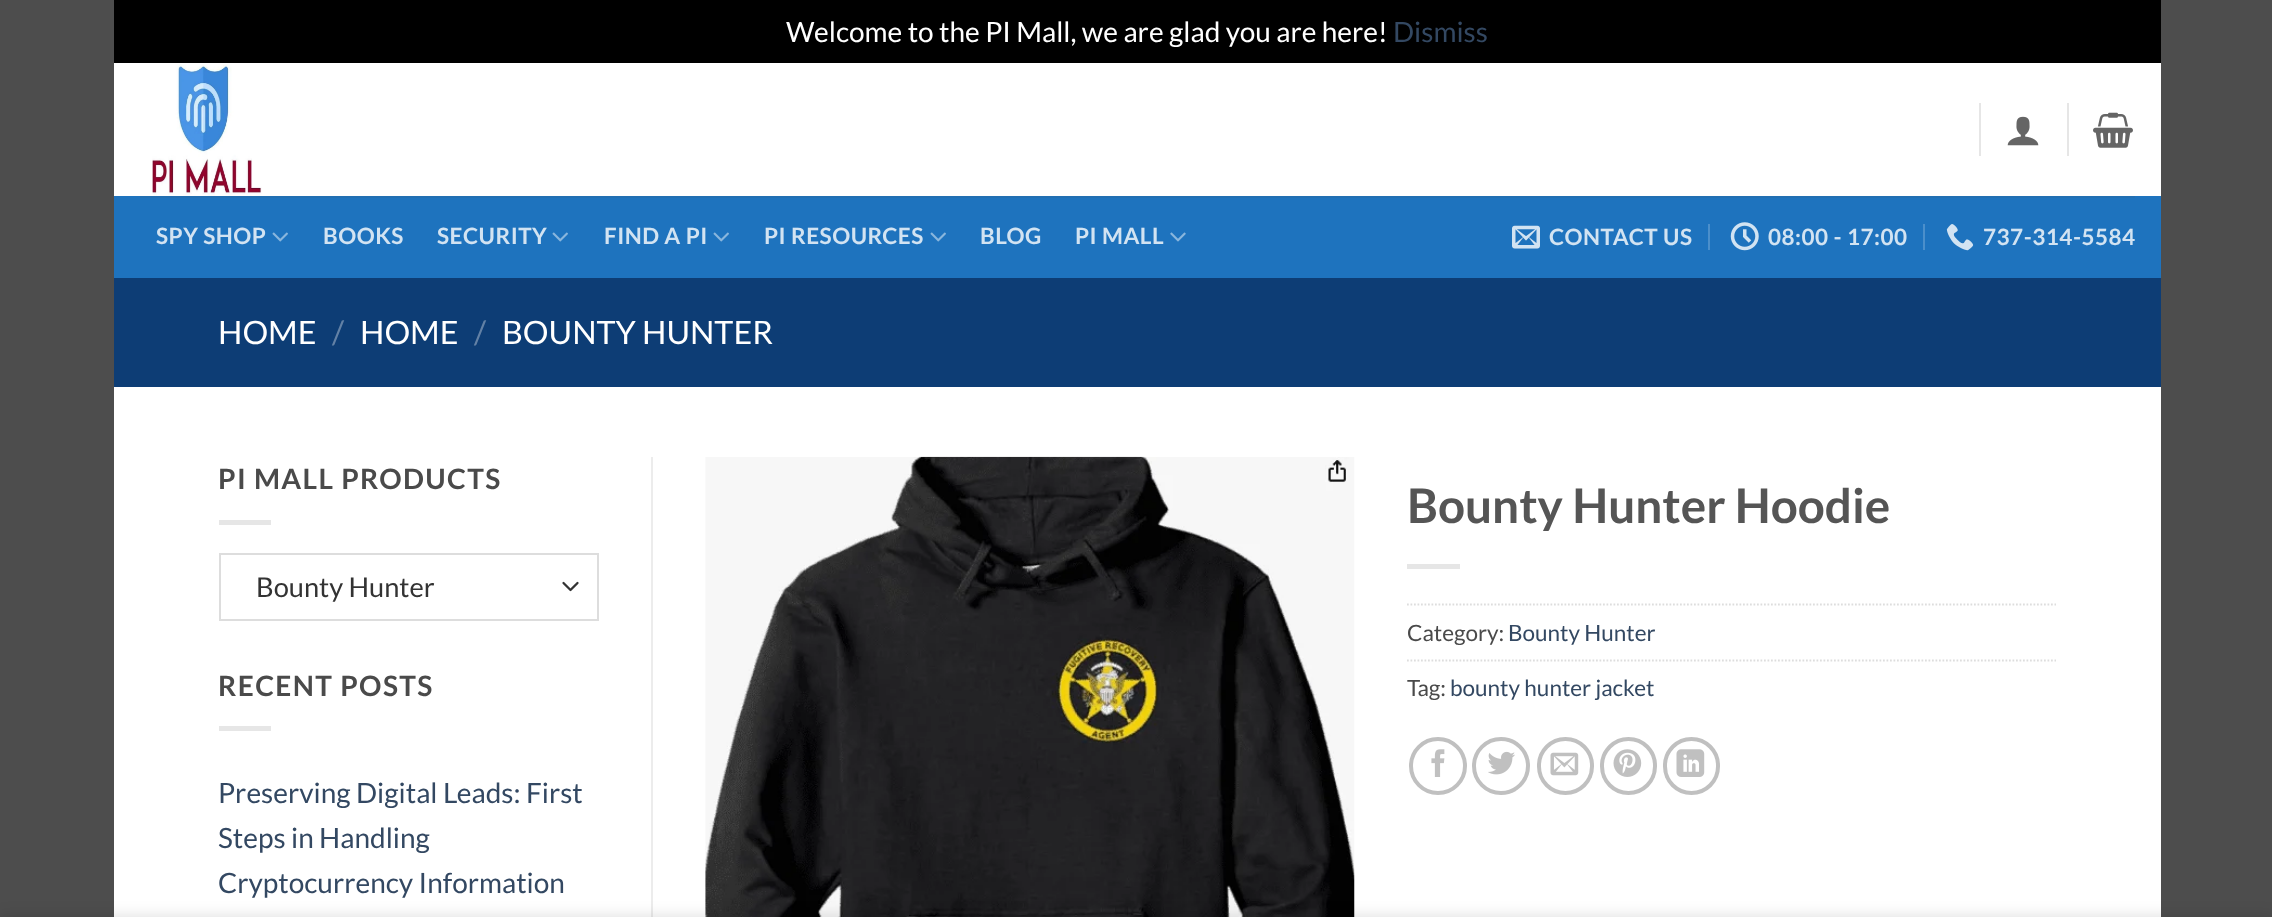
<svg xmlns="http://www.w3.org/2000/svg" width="2272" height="917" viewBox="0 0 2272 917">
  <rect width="100%" height="100%" fill="#4d4d4d"/>
  <path d="M114 0h2047v63H114z" fill="#000"/>
  <path d="M114 63h2047v854H114z" fill="#fff"/>
  <image x="152" y="64" width="110" height="132" href="img/1.png"/>
  <path d="M1979 103h2v53H1979z" fill="#e6e6e6"/>
  <image x="2007" y="116" width="32" height="30" href="img/2.png"/>
  <path d="M2067 103h2v53H2067z" fill="#e6e6e6"/>
  <image x="2093" y="112" width="40" height="36" href="img/3.png"/>
  <path d="M114 196h2047v82H114z" fill="#1e73be"/>
  <path d="M140 196h1995v2H140z" fill="#226fb2"/>
  <image x="272" y="232" width="16" height="10" href="img/4.png"/>
  <image x="552" y="232" width="16" height="10" href="img/4.png"/>
  <image x="713" y="232" width="16" height="10" href="img/4.png"/>
  <image x="930" y="232" width="16" height="10" href="img/4.png"/>
  <image x="1170" y="232" width="16" height="10" href="img/5.png"/>
  <image x="1512" y="225" width="28" height="24" href="img/6.png"/>
  <path d="M1708 224h2v26H1708z" fill="#4b8fcb"/>
  <image x="1730" y="222" width="29" height="29" href="img/7.png"/>
  <path d="M1923 224h2v26H1923z" fill="#4b8fcb"/>
  <image x="1946" y="224" width="28" height="27" href="img/8.png"/>
  <path d="M114 278h2047v109H114z" fill="#0d3d75"/>
  <path d="M219 520h52v5H219z" fill="#e6e6e6"/>
  <path d="M563.5 583L570.5 590L577.5 583" fill="none" stroke="#333" stroke-width="2.3" stroke-linecap="round" stroke-linejoin="round"/>
  <path d="M220 554h378v66H220z" fill="none" stroke="#ddd" stroke-width="2"/>
  <path d="M219 726h52v5H219z" fill="#e6e6e6"/>
  <path d="M651 457h2v460H651z" fill="#ececec"/>
  <image x="705" y="456" width="650" height="461" href="img/9.png"/>
  <path d="M1407 564h53v5H1407z" fill="#e6e6e6"/>
  <path d="M1407 604.5H2056" fill="none" stroke="#ddd" stroke-width="1.8" stroke-dasharray="1.75 1.75"/>
  <path d="M1407 660.5H2056" fill="none" stroke="#ddd" stroke-width="1.8" stroke-dasharray="1.75 1.75"/>
  <circle cx="1438" cy="766" r="27" fill="none" stroke="#c0c0c0" stroke-width="4"/>
  <image x="1431" y="749" width="14" height="28" href="img/10.png"/>
  <circle cx="1501" cy="766" r="27" fill="none" stroke="#c0c0c0" stroke-width="4"/>
  <image x="1488" y="751" width="27" height="24" href="img/11.png"/>
  <rect x="1539" y="739" width="53" height="54" rx="26.5" fill="none" stroke="#c0c0c0" stroke-width="4"/>
  <image x="1550" y="752" width="29" height="24" href="img/12.png"/>
  <rect x="1602" y="739" width="53" height="54" rx="26.5" fill="none" stroke="#c0c0c0" stroke-width="4"/>
  <image x="1613" y="749" width="29" height="28" href="img/13.png"/>
  <rect x="1665" y="739" width="53" height="54" rx="26.5" fill="none" stroke="#c0c0c0" stroke-width="4"/>
  <image x="1676" y="749" width="29" height="28" href="img/14.png"/>
  <path d="M0 917h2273v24H0z" fill="#00000024" filter="blur(8px)"/>
  <text x="786" y="42" font-family="Lato" font-size="28" fill="#fff">Welcome to the PI Mall, we are glad you are here!</text>
  <text x="1393" y="42" font-family="Lato" font-size="28" fill="#334862">Dismiss</text>
  <g font-family="Lato" font-size="22.5" font-weight="bold" letter-spacing="0.5" fill="#d2e3f2">
    <text x="156" y="244">SPY SHOP</text>
    <text x="323" y="244">BOOKS</text>
    <text x="437" y="244">SECURITY</text>
    <text x="604" y="244">FIND A PI</text>
    <text x="764" y="244">PI RESOURCES</text>
    <text x="980" y="244">BLOG</text>
    <text x="1075" y="244">PI MALL</text>
    <text x="1549" y="245">CONTACT US</text>
    <text x="1768" y="245">08:00 - 17:00</text>
    <text x="1983" y="245">737-314-5584</text>
  </g>
  <text x="218" y="344" font-family="Lato" font-size="32.25" fill="#fff">HOME</text>
  <text x="332" y="344" font-family="Lato" font-size="32.25" fill="#6281a5">/</text>
  <text x="360" y="344" font-family="Lato" font-size="32.25" fill="#fff">HOME</text>
  <text x="474" y="344" font-family="Lato" font-size="32.25" fill="#6281a5">/</text>
  <text x="502" y="344" font-family="Lato" font-size="32.25" fill="#fff">BOUNTY HUNTER</text>
  <text x="218" y="489" font-family="Lato" font-size="28" font-weight="bold" letter-spacing="1.4" fill="#4a4a4a">PI MALL PRODUCTS</text>
  <text x="256" y="597" font-family="Lato" font-size="27.25" fill="#333">Bounty Hunter</text>
  <text x="218" y="696" font-family="Lato" font-size="28" font-weight="bold" letter-spacing="1.4" fill="#4a4a4a">RECENT POSTS</text>
  <g font-family="Lato" font-size="28" fill="#334862">
    <text x="218" y="803">Preserving Digital Leads: First</text>
    <text x="218" y="848">Steps in Handling</text>
    <text x="218" y="893">Cryptocurrency Information</text>
  </g>
  <text x="1407" y="523" font-family="Lato" font-size="47.6" font-weight="bold" fill="#555">Bounty Hunter Hoodie</text>
  <text x="1407" y="641" font-family="Lato" font-size="22.5" fill="#4a4a4a">Category:</text>
  <text x="1508" y="641" font-family="Lato" font-size="22.5" fill="#334862">Bounty Hunter</text>
  <text x="1407" y="696" font-family="Lato" font-size="22.5" fill="#4a4a4a">Tag:</text>
  <text x="1450" y="696" font-family="Lato" font-size="22.5" fill="#334862">bounty hunter jacket</text>
</svg>
